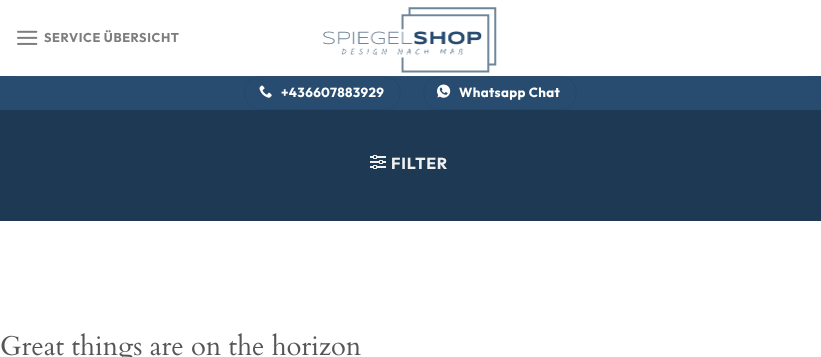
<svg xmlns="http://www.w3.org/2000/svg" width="821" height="357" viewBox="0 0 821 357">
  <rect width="100%" height="100%" fill="#fff"/>
  <image x="17" y="30" width="21" height="15" href="img/1.png"/>
  <image x="323" y="7" width="174" height="66" href="img/2.png"/>
  <path d="M0 76h821v34H0z" fill="#274c70"/>
  <rect x="244.5" y="76.5" width="156" height="33" rx="16.5" fill="none" stroke="#25486a"/>
  <rect x="423.5" y="76.5" width="153" height="33" rx="16.5" fill="none" stroke="#25486a"/>
  <path d="M15 76h791v1H15z" fill="#7777771a"/>
  <image x="259" y="85" width="13" height="13" href="img/3.png"/>
  <image x="437" y="84" width="14" height="14" href="img/4.png"/>
  <path d="M0 110h821v111H0z" fill="#1d3954"/>
  <image x="370" y="155" width="16" height="14" href="img/5.png"/>
  <image x="1" y="333" width="360" height="24" href="img/6.png"/>
  <text x="44" y="42" font-family="Outfit" font-size="12.75" font-weight="bold" letter-spacing="0.6" fill="#7d7d7d">SERVICE ÜBERSICHT</text>
  <g font-family="Outfit" font-size="13.25" font-weight="bold" letter-spacing="0.4" fill="#fff">
    <text x="281" y="97">+436607883929</text>
    <text x="459" y="97">Whatsapp Chat</text>
  </g>
  <text x="391" y="169" font-family="Outfit" font-size="16" font-weight="bold" letter-spacing="0.75" fill="#f1f1f1">FILTER</text>
</svg>
